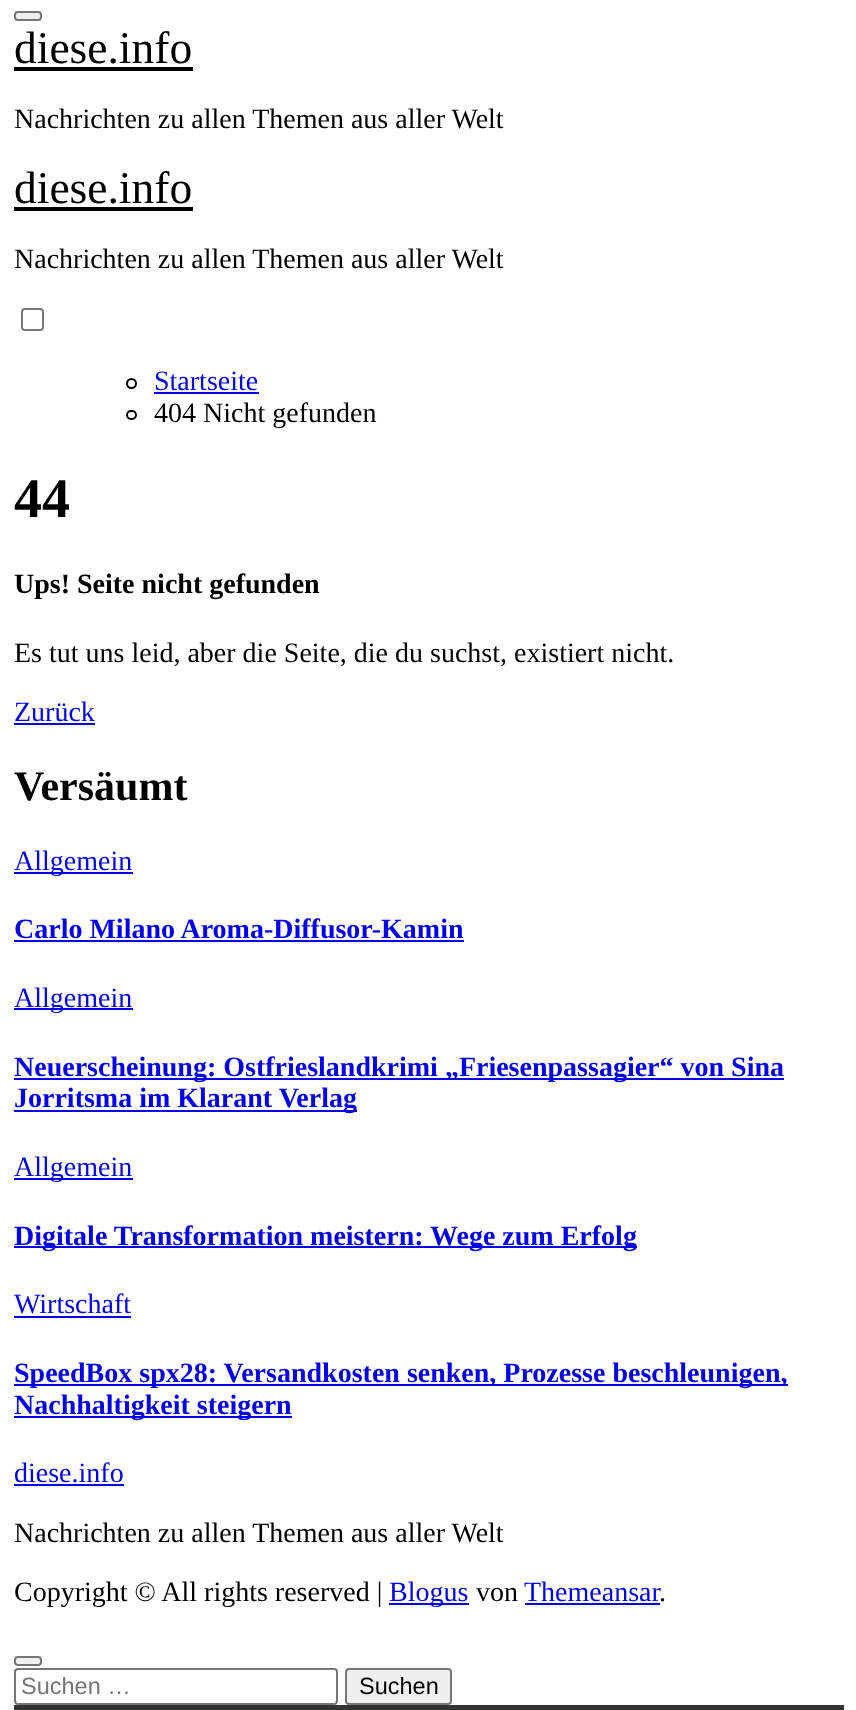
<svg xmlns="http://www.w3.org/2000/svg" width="856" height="1710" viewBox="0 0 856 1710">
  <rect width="100%" height="100%" fill="#fff"/>
  <rect x="15" y="12" width="26" height="8" rx="3" fill="#efefef" stroke="#767676" stroke-width="2"/>
  <path d="M14 67h179v4H14z" fill="#000"/>
  <path d="M14 207h179v4H14z" fill="#000"/>
  <rect x="22" y="309" width="21" height="21" rx="3" fill="none" stroke="#767676" stroke-width="2"/>
  <circle cx="131.5" cy="383.5" r="4.5" fill="none" stroke="#000" stroke-width="2"/>
  <path d="M154 392h105v2H154z" fill="#00e"/>
  <rect x="127" y="411" width="9" height="8" rx="4" fill="none" stroke="#000" stroke-width="2"/>
  <path d="M14 723h81v2H14z" fill="#00e"/>
  <path d="M14 872h119v2H14z" fill="#00e"/>
  <path d="M14 940h450v2H14z" fill="#00e"/>
  <path d="M14 1008h119v2H14z" fill="#00e"/>
  <path d="M14 1078h770v2H14z" fill="#00e"/>
  <path d="M14 1110h343v2H14z" fill="#00e"/>
  <path d="M14 1178h119v2H14z" fill="#00e"/>
  <path d="M14 1246h623v2H14z" fill="#00e"/>
  <path d="M14 1316h117v2H14z" fill="#00e"/>
  <path d="M14 1384h774v2H14z" fill="#00e"/>
  <path d="M14 1416h278v2H14z" fill="#00e"/>
  <path d="M14 1484h110v2H14z" fill="#00e"/>
  <path d="M389 1603h80v2H389z" fill="#00e"/>
  <path d="M525 1603h135v2H525z" fill="#00e"/>
  <rect x="15" y="1657" width="26" height="8" rx="3" fill="#efefef" stroke="#767676" stroke-width="2"/>
  <rect x="15" y="1669" width="322" height="35" rx="3" fill="none" stroke="#767676" stroke-width="2"/>
  <rect x="346" y="1669" width="105" height="35" rx="3" fill="#efefef" stroke="#767676" stroke-width="2"/>
  <path d="M14 1705h830v5H14z" fill="#333"/>
  <text x="14" y="63" font-family="Liberation Serif" font-size="45.5" fill="#000">diese.info</text>
  <text x="14" y="128" font-family="Liberation Serif" font-size="28" fill="#000">Nachrichten zu allen Themen aus aller Welt</text>
  <text x="14" y="203" font-family="Liberation Serif" font-size="45.5" fill="#000">diese.info</text>
  <text x="14" y="268" font-family="Liberation Serif" font-size="28" fill="#000">Nachrichten zu allen Themen aus aller Welt</text>
  <text x="154" y="390" font-family="Liberation Serif" font-size="28" fill="#00e">Startseite</text>
  <text x="154" y="422" font-family="Liberation Serif" font-size="28" fill="#000">404 Nicht gefunden</text>
  <text x="14" y="517" font-family="Liberation Serif" font-size="56" font-weight="bold" fill="#000">44</text>
  <text x="14" y="593" font-family="Liberation Serif" font-size="28" font-weight="bold" fill="#000">Ups! Seite nicht gefunden</text>
  <text x="14" y="662" font-family="Liberation Serif" font-size="28" fill="#000">Es tut uns leid, aber die Seite, die du suchst, existiert nicht.</text>
  <text x="14" y="721" font-family="Liberation Serif" font-size="28" fill="#00e">Zurück</text>
  <text x="14" y="800" font-family="Liberation Serif" font-size="42" font-weight="bold" fill="#000">Versäumt</text>
  <text x="14" y="870" font-family="Liberation Serif" font-size="28" fill="#00e">Allgemein</text>
  <text x="14" y="938" font-family="Liberation Serif" font-size="28" font-weight="bold" fill="#00e">Carlo Milano Aroma-Diffusor-Kamin</text>
  <text x="14" y="1007" font-family="Liberation Serif" font-size="28" fill="#00e">Allgemein</text>
  <g font-family="Liberation Serif" font-size="28" font-weight="bold" fill="#00e">
    <text x="14" y="1076">Neuerscheinung: Ostfrieslandkrimi „Friesenpassagier“ von Sina</text>
    <text x="14" y="1107">Jorritsma im Klarant Verlag</text>
  </g>
  <text x="14" y="1176" font-family="Liberation Serif" font-size="28" fill="#00e">Allgemein</text>
  <text x="14" y="1245" font-family="Liberation Serif" font-size="28" font-weight="bold" fill="#00e">Digitale Transformation meistern: Wege zum Erfolg</text>
  <text x="14" y="1313" font-family="Liberation Serif" font-size="28" fill="#00e">Wirtschaft</text>
  <g font-family="Liberation Serif" font-size="28" font-weight="bold" fill="#00e">
    <text x="14" y="1382">SpeedBox spx28: Versandkosten senken, Prozesse beschleunigen,</text>
    <text x="14" y="1414">Nachhaltigkeit steigern</text>
  </g>
  <text x="14" y="1482" font-family="Liberation Serif" font-size="28" fill="#00e">diese.info</text>
  <g font-family="Liberation Serif" font-size="28" fill="#000">
    <text x="14" y="1542">Nachrichten zu allen Themen aus aller Welt</text>
    <text x="14" y="1601">Copyright © All rights reserved |</text>
  </g>
  <text x="389" y="1601" font-family="Liberation Serif" font-size="28" fill="#00e">Blogus</text>
  <text x="476" y="1601" font-family="Liberation Serif" font-size="28" fill="#000">von</text>
  <text x="524" y="1601" font-family="Liberation Serif" font-size="28" fill="#00e">Themeansar</text>
  <text x="659" y="1601" font-family="Liberation Serif" font-size="28" fill="#000">.</text>
  <text x="21" y="1694" font-family="Liberation Sans" font-size="23.5" fill="#757575">Suchen …</text>
  <text x="359" y="1694" font-family="Liberation Sans" font-size="23.5" fill="#000">Suchen</text>
</svg>
